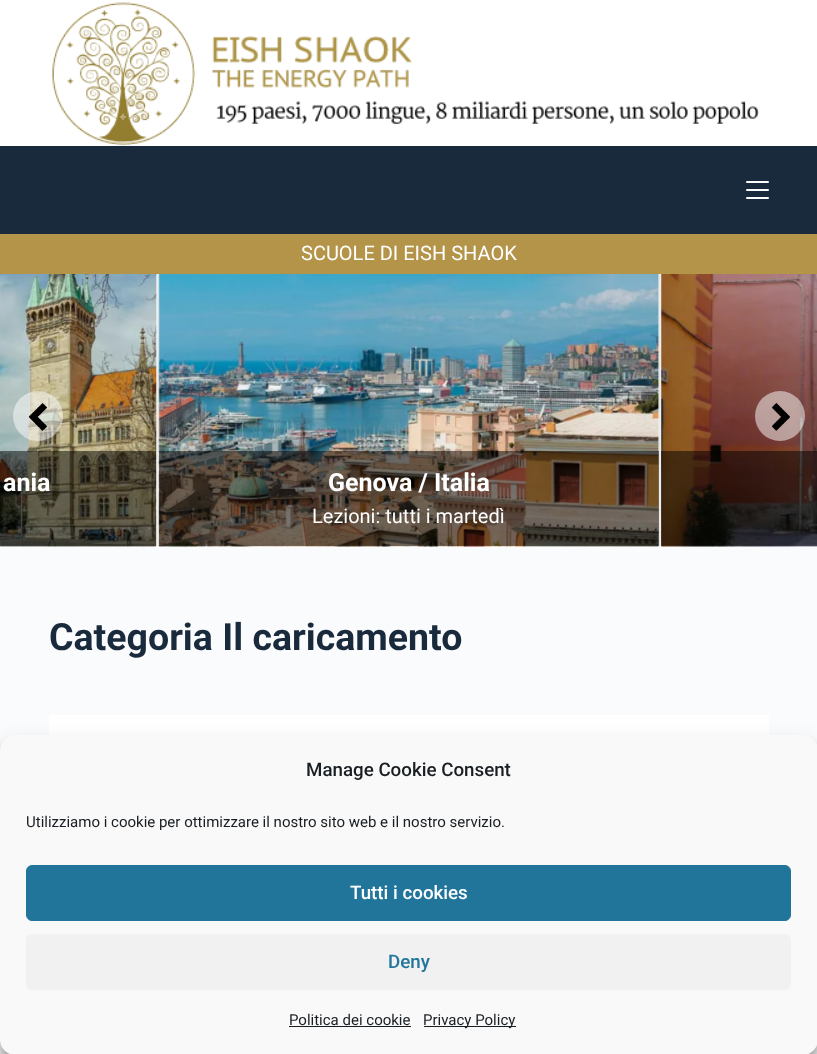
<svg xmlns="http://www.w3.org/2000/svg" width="817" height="1054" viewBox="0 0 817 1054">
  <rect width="100%" height="100%" fill="#fafbfc"/>
  <path d="M0 0h817v146H0z" fill="#fff"/>
  <image x="52" y="2" width="707" height="144" href="img/1.png"/>
  <path d="M0 146h817v88H0z" fill="#192a3d"/>
  <rect x="746" y="181" width="23" height="2" rx="1" fill="#fff"/>
  <rect x="746" y="189" width="23" height="2" rx="1" fill="#fff"/>
  <rect x="746" y="197" width="23" height="2" rx="1" fill="#fff"/>
  <path d="M0 234h817v40H0z" fill="#b39449"/>
  <path d="M0 274h817v272H0z" fill="#eee"/>
  <image x="0" y="274" width="157" height="273" href="img/4.png"/>
  <circle cx="38" cy="416" r="25" fill="#ffffff80"/>
  <image x="28" y="403" width="19" height="28" href="img/2.png"/>
  <image x="661" y="274" width="156" height="273" href="img/6.png"/>
  <circle cx="780" cy="416" r="25" fill="#ffffff80"/>
  <image x="772" y="403" width="18" height="28" href="img/3.png"/>
  <path d="M0 451h156v95H0z" fill="#00000080"/>
  <image x="158" y="274" width="502" height="273" href="img/5.png"/>
  <path d="M159 451h500v95H159z" fill="#00000080"/>
  <path d="M661 451h156v95H661z" fill="#00000080"/>
  <path d="M49 715h720v20H49z" fill="#fff"/>
  <rect y="743" width="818" height="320" rx="15" fill="#0000003b" filter="blur(4px)"/>
  <rect y="748" width="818" height="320" rx="15" fill="#00000030" filter="blur(12.5px)"/>
  <rect x="0.5" y="735.5" width="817" height="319" rx="14.5" fill="#f9f9f9" stroke="#f9f9f9"/>
  <rect x="26.5" y="865.5" width="764" height="55" rx="5.5" fill="#21759b" stroke="#21759b"/>
  <rect x="26" y="934" width="765" height="56" rx="6" fill="#f1f1f1"/>
  <path d="M289 1026h122v1H289z" fill="#191e23"/>
  <path d="M424 1026h92v1H424z" fill="#191e23"/>
  <text x="301" y="260" font-family="Roboto" font-size="20" fill="#fff">SCUOLE DI EISH SHAOK</text>
  <g font-family="Roboto" font-size="25" font-weight="bold" fill="#fff">
    <text x="3" y="491">ania</text>
    <text x="328" y="491">Genova / Italia</text>
  </g>
  <text x="312" y="523" font-family="Roboto" font-size="20" fill="#fff">Lezioni: tutti i martedì</text>
  <text x="49" y="650" font-family="Roboto" font-size="37.5" font-weight="bold" fill="#192a3d">Categoria Il caricamento</text>
  <text x="306" y="776" font-family="Roboto" font-size="18.75" font-weight="500" fill="#191e23">Manage Cookie Consent</text>
  <text x="26" y="827" font-family="Roboto" font-size="15" fill="#191e23">Utilizziamo i cookie per ottimizzare il nostro sito web e il nostro servizio.</text>
  <text x="350" y="899" font-family="Roboto" font-size="18.75" font-weight="500" fill="#fff">Tutti i cookies</text>
  <text x="388" y="968" font-family="Roboto" font-size="18.75" font-weight="500" fill="#21759b">Deny</text>
  <g font-family="Roboto" font-size="15" fill="#191e23">
    <text x="289" y="1025">Politica dei cookie</text>
    <text x="423" y="1025">Privacy Policy</text>
  </g>
</svg>
